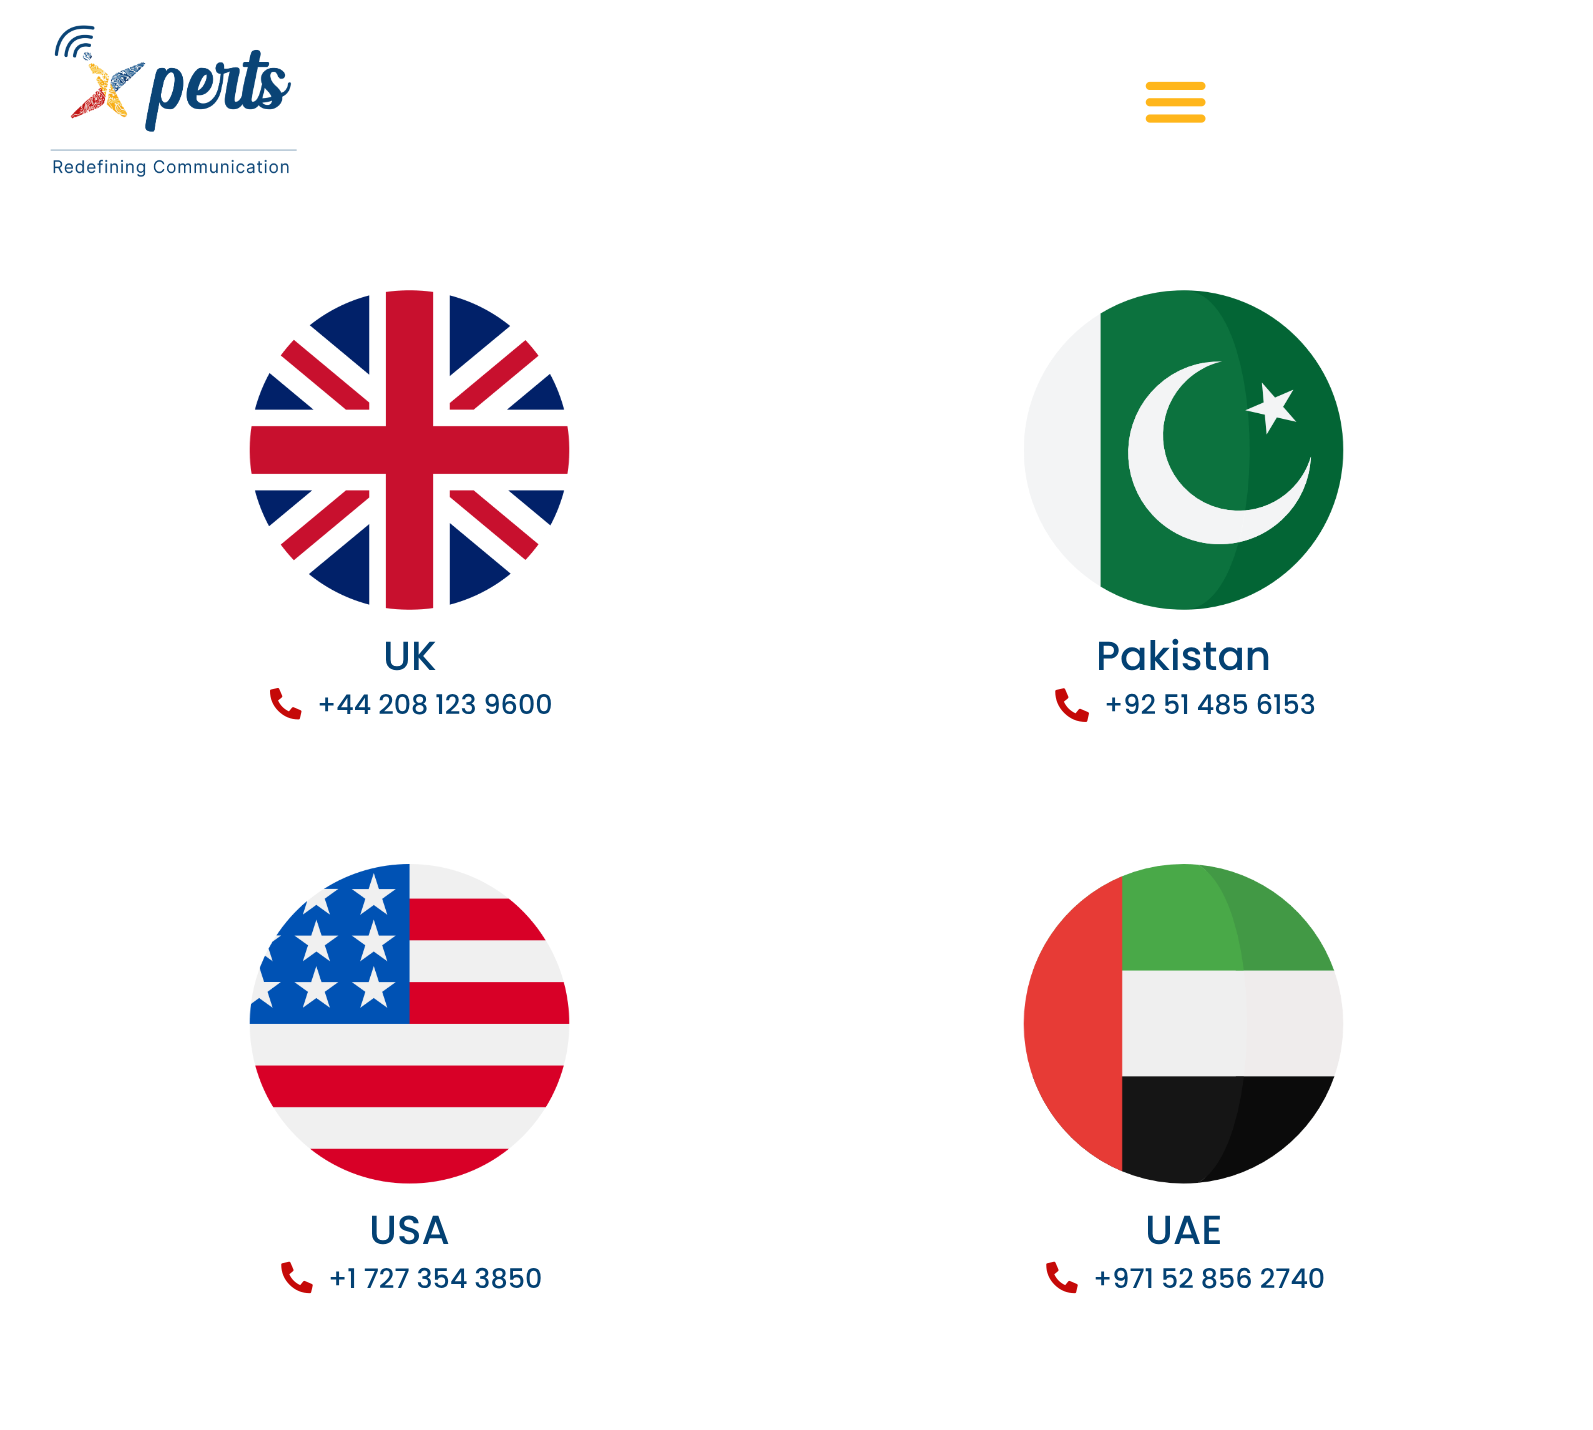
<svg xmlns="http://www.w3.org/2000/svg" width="1593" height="1430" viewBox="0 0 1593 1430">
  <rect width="100%" height="100%" fill="#fff"/>
  <image x="50" y="25" width="247" height="152" href="img/1.png"/>
  <image x="1145" y="81" width="61" height="42" href="img/2.png"/>
  <image x="249" y="290" width="321" height="320" href="img/3.png"/>
  <image x="270" y="688" width="32" height="32" href="img/4.png"/>
  <image x="1024" y="290" width="320" height="320" href="img/5.png"/>
  <image x="1055" y="688" width="34" height="34" href="img/6.png"/>
  <image x="249" y="864" width="321" height="320" href="img/7.png"/>
  <image x="281" y="1261" width="32" height="33" href="img/8.png"/>
  <image x="1023" y="864" width="321" height="320" href="img/9.png"/>
  <image x="1046" y="1261" width="32" height="33" href="img/8.png"/>
  <text x="383" y="670" font-family="Poppins" font-size="40.5" font-weight="500" fill="#034173">UK</text>
  <text x="317" y="714" font-family="Poppins" font-size="27" font-weight="500" fill="#034173">+44 208 123 9600</text>
  <text x="1096" y="670" font-family="Poppins" font-size="40.5" font-weight="500" fill="#034173">Pakistan</text>
  <text x="1104" y="714" font-family="Poppins" font-size="27" font-weight="500" fill="#034173">+92 51 485 6153</text>
  <text x="369" y="1244" font-family="Poppins" font-size="40.5" font-weight="500" fill="#034173">USA</text>
  <text x="328" y="1288" font-family="Poppins" font-size="27" font-weight="500" fill="#034173">+1 727 354 3850</text>
  <text x="1145" y="1244" font-family="Poppins" font-size="40.5" font-weight="500" fill="#034173">UAE</text>
  <text x="1093" y="1288" font-family="Poppins" font-size="27" font-weight="500" fill="#034173">+971 52 856 2740</text>
</svg>
